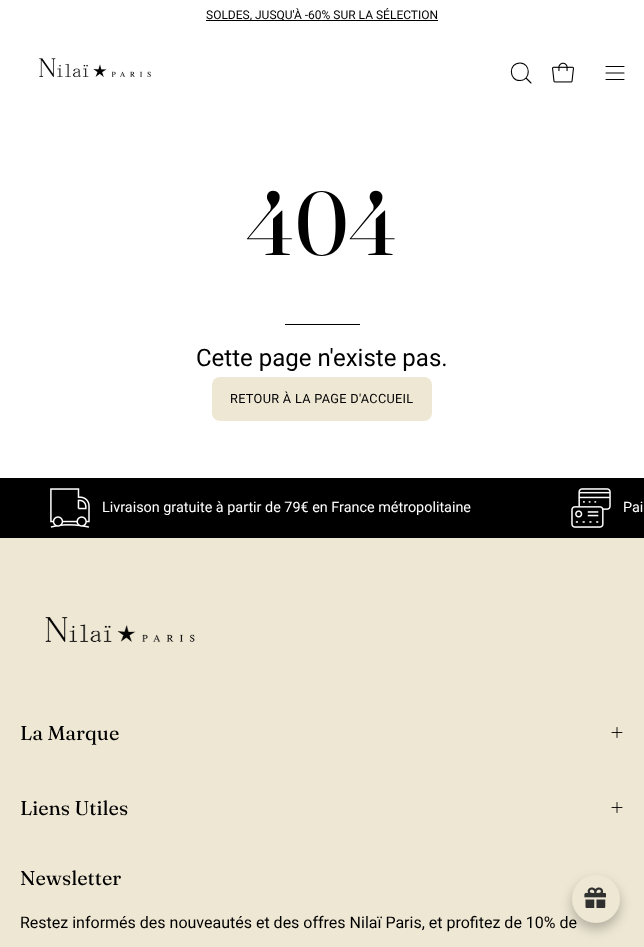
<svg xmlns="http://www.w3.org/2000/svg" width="644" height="947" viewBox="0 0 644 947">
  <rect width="100%" height="100%" fill="#fff"/>
  <path d="M206 20h232v1H206z" fill="#000"/>
  <image x="39" y="58" width="112" height="19" href="img/1.png"/>
  <path d="M520 80.5C531 80.5 531 63 520 63C508.5 63 508.5 80.5 520 80.5ZM526 78L531 83" fill="none" stroke="#000" stroke-width="1.1" stroke-linecap="round" stroke-linejoin="round"/>
  <image x="552" y="62" width="22" height="21" href="img/2.png"/>
  <path d="M606 73H624M606 66.5H624M606 79.5H624" fill="none" stroke="#000" stroke-width="1.1" stroke-linecap="round" stroke-linejoin="round"/>
  <path d="M285 324h75v1H285z" fill="#000"/>
  <rect x="212" y="377" width="220" height="44" rx="8" fill="#eee7d4"/>
  <path d="M0 478h644v60H0z" fill="#000"/>
  <image x="50" y="488" width="40" height="40" href="img/3.png"/>
  <image x="571" y="488" width="40" height="40" href="img/4.png"/>
  <path d="M0 538h644v409H0z" fill="#eee7d4"/>
  <image x="45" y="617" width="150" height="25" href="img/5.png"/>
  <path d="M612 732.5H622M617 727.5V737.5" fill="none" stroke="#000" stroke-width="0.9" stroke-linecap="round" stroke-linejoin="round"/>
  <path d="M612 807.5H622M617 802.5V812.5" fill="none" stroke="#000" stroke-width="0.9" stroke-linecap="round" stroke-linejoin="round"/>
  <rect x="572" y="881" width="48" height="48" rx="24" fill="#00000040" filter="blur(6px)"/>
  <text x="206" y="19" font-family="Roboto" font-size="12" fill="#000">SOLDES, JUSQU'À -60% SUR LA SÉLECTION</text>
  <text x="246" y="255" font-family="Fraunces" font-size="90" fill="#000">404</text>
  <text x="196" y="366" font-family="Roboto" font-size="24" fill="#000">Cette page n'existe pas.</text>
  <text x="230" y="403" font-family="Roboto" font-size="12.75" letter-spacing="0.3" fill="#000">RETOUR À LA PAGE D'ACCUEIL</text>
  <g font-family="Roboto" font-size="14.4" fill="#fff">
    <text x="102" y="512">Livraison gratuite à partir de 79€ en France métropolitaine</text>
    <text x="623" y="512">Pai</text>
  </g>
  <g font-family="'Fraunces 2'" font-size="20" fill="#000">
    <text x="20" y="740">La Marque</text>
    <text x="20" y="815">Liens Utiles</text>
    <text x="20" y="885">Newsletter</text>
  </g>
  <text x="20" y="928" font-family="Roboto" font-size="16" fill="#000">Restez informés des nouveautés et des offres Nilaï Paris, et profitez de 10% de</text>
  <circle cx="596" cy="899" r="24" fill="#eee7d4"/>
  <image x="584" y="887" width="22" height="21" href="img/6.png"/>
</svg>
